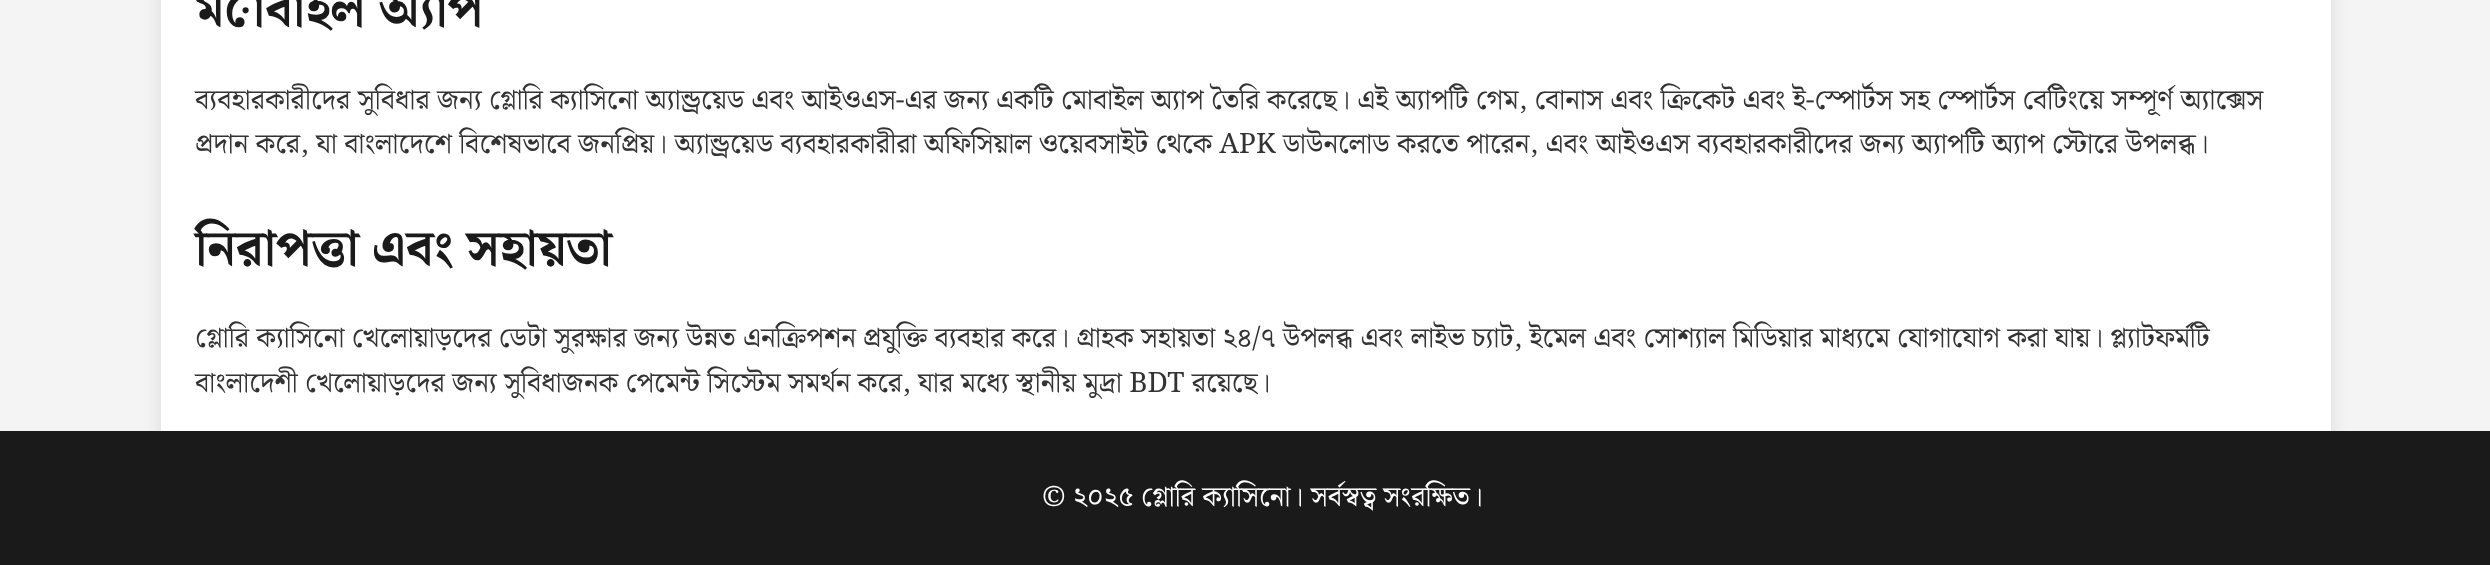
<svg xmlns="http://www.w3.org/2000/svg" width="2490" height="565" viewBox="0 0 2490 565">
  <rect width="100%" height="100%" fill="#f4f4f4"/>
  <path d="M161 -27h2170v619H161z" fill="#0000001a" filter="blur(9px)"/>
  <path d="M161 0h2170v431H161z" fill="#fff"/>
  <path d="M0 431h2490v134H0z" fill="#1a1a1a"/>
  <text x="195" y="26" font-family="Noto Serif Bengali" font-size="50.5" font-weight="bold" fill="#1a1a1a">মোবাইল অ্যাপ</text>
  <g font-family="Noto Serif Bengali" font-size="28" fill="#333">
    <text x="195" y="109">ব্যবহারকারীদের সুবিধার জন্য গ্লোরি ক্যাসিনো অ্যান্ড্রয়েড এবং আইওএস-এর জন্য একটি মোবাইল অ্যাপ তৈরি করেছে। এই অ্যাপটি গেম, বোনাস এবং ক্রিকেট এবং ই-স্পোর্টস সহ স্পোর্টস বেটিংয়ে সম্পূর্ণ অ্যাক্সেস</text>
    <text x="195" y="153">প্রদান করে, যা বাংলাদেশে বিশেষভাবে জনপ্রিয়। অ্যান্ড্রয়েড ব্যবহারকারীরা অফিসিয়াল ওয়েবসাইট থেকে APK ডাউনলোড করতে পারেন, এবং আইওএস ব্যবহারকারীদের জন্য অ্যাপটি অ্যাপ স্টোরে উপলব্ধ।</text>
  </g>
  <text x="195" y="265" font-family="Noto Serif Bengali" font-size="50.5" font-weight="bold" fill="#1a1a1a">নিরাপত্তা এবং সহায়তা</text>
  <g font-family="Noto Serif Bengali" font-size="28" fill="#333">
    <text x="195" y="347">গ্লোরি ক্যাসিনো খেলোয়াড়দের ডেটা সুরক্ষার জন্য উন্নত এনক্রিপশন প্রযুক্তি ব্যবহার করে। গ্রাহক সহায়তা ২৪/৭ উপলব্ধ এবং লাইভ চ্যাট, ইমেল এবং সোশ্যাল মিডিয়ার মাধ্যমে যোগাযোগ করা যায়। প্ল্যাটফর্মটি</text>
    <text x="195" y="392">বাংলাদেশী খেলোয়াড়দের জন্য সুবিধাজনক পেমেন্ট সিস্টেম সমর্থন করে, যার মধ্যে স্থানীয় মুদ্রা BDT রয়েছে।</text>
  </g>
  <text x="1042" y="506" font-family="Noto Serif Bengali" font-size="28" fill="#fff">© ২০২৫ গ্লোরি ক্যাসিনো। সর্বস্বত্ব সংরক্ষিত।</text>
</svg>
